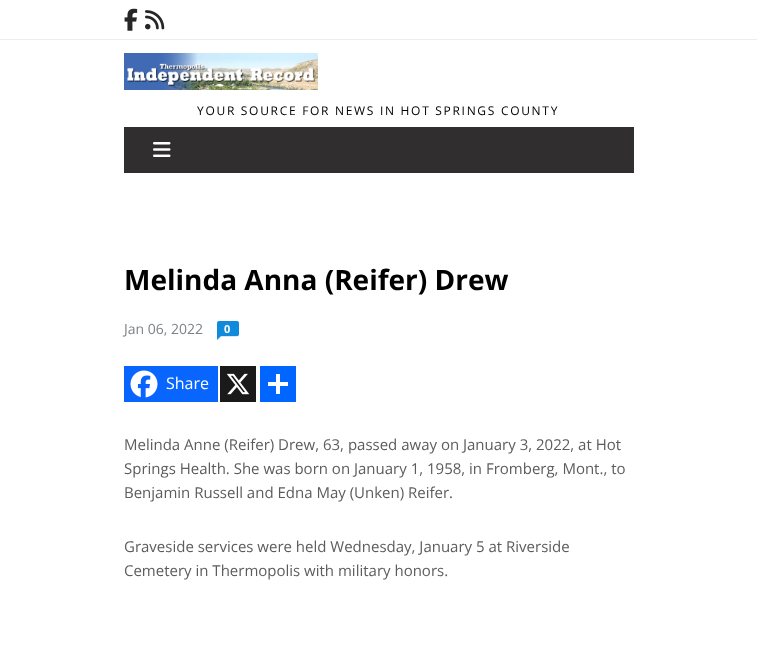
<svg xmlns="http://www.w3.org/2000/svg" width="757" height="648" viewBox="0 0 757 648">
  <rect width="100%" height="100%" fill="#fff"/>
  <path d="M0 39h757v1H0z" fill="#ededed"/>
  <image x="124" y="8" width="14" height="23" href="img/1.png"/>
  <image x="145" y="10" width="20" height="20" href="img/2.png"/>
  <image x="124" y="53" width="194" height="37" href="img/3.png"/>
  <path d="M124 127h510v46H124z" fill="#312e2f"/>
  <image x="153" y="142" width="18" height="15" href="img/4.png"/>
  <image x="217" y="321" width="22" height="19" href="img/5.png"/>
  <path d="M124 366h94v36H124z" fill="#0866ff"/>
  <image x="130" y="370" width="28" height="28" href="img/6.png"/>
  <path d="M220 366h36v36H220z" fill="#1a1a1a"/>
  <image x="226" y="373" width="24" height="22" href="img/7.png"/>
  <path d="M260 366h36v36H260z" fill="#0166ff"/>
  <path d="M276 374h4v20H276z" fill="#fff"/>
  <path d="M268 382h20v4H268z" fill="#fff"/>
  <text x="197" y="115" font-family="Open Sans" font-size="12" letter-spacing="1.7" fill="#000">YOUR SOURCE FOR NEWS IN HOT SPRINGS COUNTY</text>
  <text x="124" y="290" font-family="Open Sans" font-size="28" font-weight="bold" fill="#000">Melinda Anna (Reifer) Drew</text>
  <text x="124" y="334" font-family="Open Sans" font-size="14" fill="#7c8387">Jan 06, 2022</text>
  <text x="224" y="333" font-family="Open Sans" font-size="11" font-weight="bold" fill="#fff">0</text>
  <text x="166" y="389" font-family="Open Sans" font-size="16" fill="#fff">Share</text>
  <g font-family="Open Sans" font-size="15" fill="#5c5c5c">
    <text x="124" y="450">Melinda Anne (Reifer) Drew, 63, passed away on January 3, 2022, at Hot</text>
    <text x="124" y="474">Springs Health. She was born on January 1, 1958, in Fromberg, Mont., to</text>
    <text x="124" y="498">Benjamin Russell and Edna May (Unken) Reifer.</text>
    <text x="124" y="552">Graveside services were held Wednesday, January 5 at Riverside</text>
    <text x="124" y="576">Cemetery in Thermopolis with military honors.</text>
  </g>
</svg>
